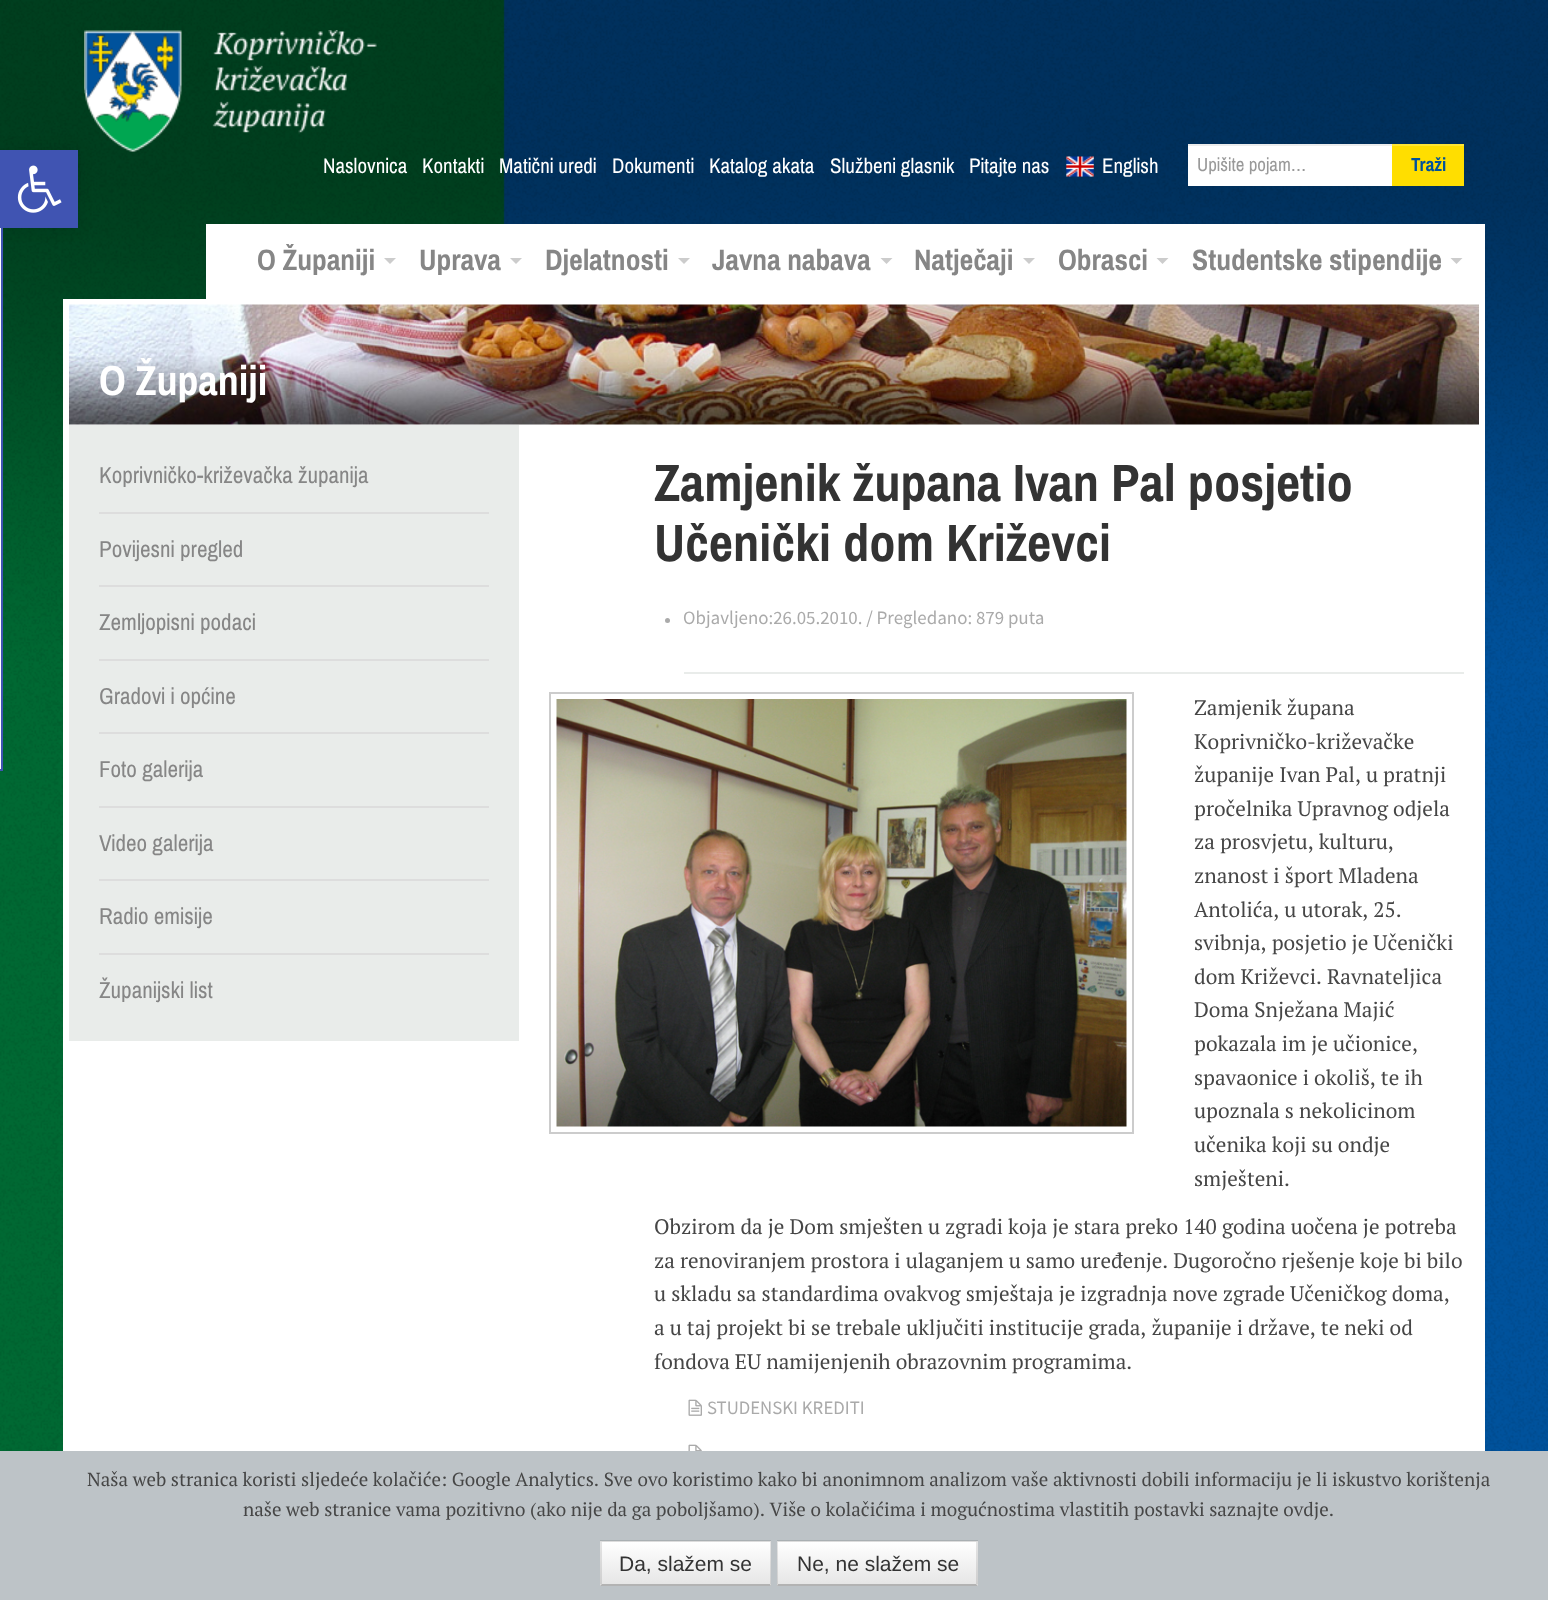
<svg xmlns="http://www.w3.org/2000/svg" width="1548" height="1600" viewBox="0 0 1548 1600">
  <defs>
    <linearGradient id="g1" gradientUnits="userSpaceOnUse" x1="686" y1="1542" x2="686" y2="1584"><stop offset="0" stop-color="#fff"/><stop offset="1" stop-color="#e6e6e6"/></linearGradient>
    <linearGradient id="g2" gradientUnits="userSpaceOnUse" x1="878" y1="1542" x2="878" y2="1584"><stop offset="0" stop-color="#fff"/><stop offset="1" stop-color="#e6e6e6"/></linearGradient>
  </defs>
  <rect width="100%" height="100%" fill="#fff"/>
  <image x="0" y="750" width="1548" height="701" href="img/1.png"/>
  <image x="0" y="0" width="1548" height="750" href="img/2.png"/>
  <path d="M0 228h1v543H0z" fill="#fff"/>
  <path d="M-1 151h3v619H-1z" fill="none" stroke="#4054b2" stroke-width="2"/>
  <image x="84" y="30" width="293" height="122" href="img/4.png"/>
  <path d="M0 150h78v78H0z" fill="#0000001a" filter="blur(7.5px)"/>
  <path d="M0 150h78v78H0z" fill="#4054b2"/>
  <image x="17" y="165" width="45" height="48" href="img/3.png"/>
  <image x="1066" y="156" width="28" height="21" href="img/5.png"/>
  <path d="M1188 146h204v40H1188z" fill="#fff"/>
  <path d="M1188 144h207v2H1188z" fill="#ececec"/>
  <path d="M1392 146h72v40H1392z" fill="#ffde00"/>
  <path d="M1392 144h72v2H1392z" fill="#ffe533"/>
  <path d="M206 224h1279v75H206z" fill="#fff"/>
  <path d="M384 258H396L390 264Z" fill="#ccc"/>
  <path d="M510 258H522L516 264Z" fill="#ccc"/>
  <path d="M678 258H690L684 264Z" fill="#ccc"/>
  <path d="M880.5 258H892.5L886.5 264Z" fill="#ccc"/>
  <path d="M1023 258H1035L1029 264Z" fill="#ccc"/>
  <path d="M1156.5 258H1168.5L1162.5 264Z" fill="#ccc"/>
  <path d="M1450.5 258H1462.5L1456.5 264Z" fill="#ccc"/>
  <path d="M63 299h1422v1152H63z" fill="#fff"/>
  <image x="69" y="304" width="1410" height="121" href="img/6.png"/>
  <path d="M69 425h450v616H69z" fill="#e9ecea"/>
  <path d="M99 512h390v2H99z" fill="#ddd"/>
  <path d="M99 585h390v2H99z" fill="#ddd"/>
  <path d="M99 659h390v2H99z" fill="#ddd"/>
  <path d="M99 732h390v2H99z" fill="#ddd"/>
  <path d="M99 806h390v2H99z" fill="#ddd"/>
  <path d="M99 879h390v2H99z" fill="#ddd"/>
  <path d="M99 953h390v2H99z" fill="#ddd"/>
  <path d="M684 672h780v2H684z" fill="#e9ecea"/>
  <circle cx="667.5" cy="620.5" r="2.5" fill="#aaa"/>
  <path d="M550 693h583v440H550z" fill="none" stroke="#ccc" stroke-width="2"/>
  <image x="556" y="699" width="571" height="428" href="img/7.png"/>
  <image x="688" y="1399" width="14" height="17" href="img/8.png"/>
  <image x="688" y="1444" width="14" height="7" href="img/9.png"/>
  <path d="M0 1451h1548v149H0z" fill="#bdc3c7"/>
  <path d="M600 1541h171v45H600z" fill="#f5f5f5"/>
  <path d="M600 1542h171v42H600z" fill="url(#g1)"/>
  <path d="M600 1540H771L770 1542H602Z" fill="#0000001a"/>
  <path d="M771 1540V1586L770 1584V1542Z" fill="#0000001a"/>
  <path d="M771 1586H600L602 1584H770Z" fill="#b3b3b3"/>
  <path d="M600 1586V1540L602 1542V1584Z" fill="#0000001a"/>
  <path d="M777 1541h201v45H777z" fill="#f5f5f5"/>
  <path d="M777 1542h201v42H777z" fill="url(#g2)"/>
  <path d="M777 1540H978L976 1542H778Z" fill="#0000001a"/>
  <path d="M978 1540V1586L976 1584V1542Z" fill="#0000001a"/>
  <path d="M978 1586H777L778 1584H976Z" fill="#b3b3b3"/>
  <path d="M777 1586V1540L778 1542V1584Z" fill="#0000001a"/>
  <g font-family="Archivo Narrow" font-size="21" fill="#fff">
    <text x="323" y="173">Naslovnica</text>
    <text x="422" y="173">Kontakti</text>
    <text x="499" y="173">Matični uredi</text>
    <text x="612" y="173">Dokumenti</text>
    <text x="709" y="173">Katalog akata</text>
    <text x="830" y="173">Službeni glasnik</text>
    <text x="969" y="173">Pitajte nas</text>
    <text x="1102" y="173">English</text>
  </g>
  <text x="1197" y="171" font-family="Archivo Narrow" font-size="18.9" fill="#999">Upišite pojam…</text>
  <text x="1411" y="171" font-family="Archivo Narrow" font-size="18.9" font-weight="bold" fill="#00529c">Traži</text>
  <g font-family="Archivo Narrow" font-size="29.5" font-weight="bold" fill="#868686">
    <text x="257" y="270">O Županiji</text>
    <text x="419" y="270">Uprava</text>
    <text x="545" y="270">Djelatnosti</text>
    <text x="712" y="270">Javna nabava</text>
    <text x="914" y="270">Natječaji</text>
    <text x="1058" y="270">Obrasci</text>
    <text x="1192" y="270">Studentske stipendije</text>
  </g>
  <text x="99" y="395" font-family="Archivo Narrow" font-size="42" font-weight="bold" fill="#fff">O Županiji</text>
  <g font-family="Archivo Narrow" font-size="23.1" fill="#868686">
    <text x="99" y="483">Koprivničko-križevačka županija</text>
    <text x="99" y="557">Povijesni pregled</text>
    <text x="99" y="630">Zemljopisni podaci</text>
    <text x="99" y="704">Gradovi i općine</text>
    <text x="99" y="777">Foto galerija</text>
    <text x="99" y="851">Video galerija</text>
    <text x="99" y="924">Radio emisije</text>
    <text x="99" y="998">Županijski list</text>
  </g>
  <g font-family="Archivo Narrow" font-size="52.5" font-weight="bold" fill="#333">
    <text x="654" y="501">Zamjenik župana Ivan Pal posjetio</text>
    <text x="654" y="561">Učenički dom Križevci</text>
  </g>
  <text x="683" y="624" font-family="Source Sans Pro" font-size="18.9" fill="#aaa">Objavljeno:26.05.2010. / Pregledano: 879 puta</text>
  <g font-family="PT Serif" font-size="21" fill="#464646">
    <text x="1194" y="715">Zamjenik župana</text>
    <text x="1194" y="749">Koprivničko-križevačke</text>
    <text x="1194" y="782">županije Ivan Pal, u pratnji</text>
    <text x="1194" y="816">pročelnika Upravnog odjela</text>
    <text x="1194" y="849">za prosvjetu, kulturu,</text>
    <text x="1194" y="883">znanost i šport Mladena</text>
    <text x="1194" y="917">Antolića, u utorak, 25.</text>
    <text x="1194" y="950">svibnja, posjetio je Učenički</text>
    <text x="1194" y="984">dom Križevci. Ravnateljica</text>
    <text x="1194" y="1017">Doma Snježana Majić</text>
    <text x="1194" y="1051">pokazala im je učionice,</text>
    <text x="1194" y="1085">spavaonice i okoliš, te ih</text>
    <text x="1194" y="1118">upoznala s nekolicinom</text>
    <text x="1194" y="1152">učenika koji su ondje</text>
    <text x="1194" y="1186">smješteni.</text>
    <text x="654" y="1234">Obzirom da je Dom smješten u zgradi koja je stara preko 140 godina uočena je potreba</text>
    <text x="654" y="1268">za renoviranjem prostora i ulaganjem u samo uređenje. Dugoročno rješenje koje bi bilo</text>
    <text x="654" y="1301">u skladu sa standardima ovakvog smještaja je izgradnja nove zgrade Učeničkog doma,</text>
    <text x="654" y="1335">a u taj projekt bi se trebale uključiti institucije grada, županije i države, te neki od</text>
    <text x="654" y="1369">fondova EU namijenjenih obrazovnim programima.</text>
  </g>
  <text x="707" y="1414" font-family="Source Sans Pro" font-size="18.9" fill="#aaa">STUDENSKI KREDITI</text>
  <g font-family="PT Serif" font-size="18.9" fill="#464646">
    <text x="87" y="1486">Naša web stranica koristi sljedeće kolačiće: Google Analytics. Sve ovo koristimo kako bi anonimnom analizom vaše aktivnosti dobili informaciju je li iskustvo korištenja</text>
    <text x="243" y="1516">naše web stranice vama pozitivno (ako nije da ga poboljšamo). Više o kolačićima i mogućnostima vlastitih postavki saznajte ovdje.</text>
  </g>
  <g font-family="Liberation Sans" font-size="21" fill="#333">
    <text x="619" y="1571">Da, slažem se</text>
    <text x="797" y="1571">Ne, ne slažem se</text>
  </g>
</svg>
